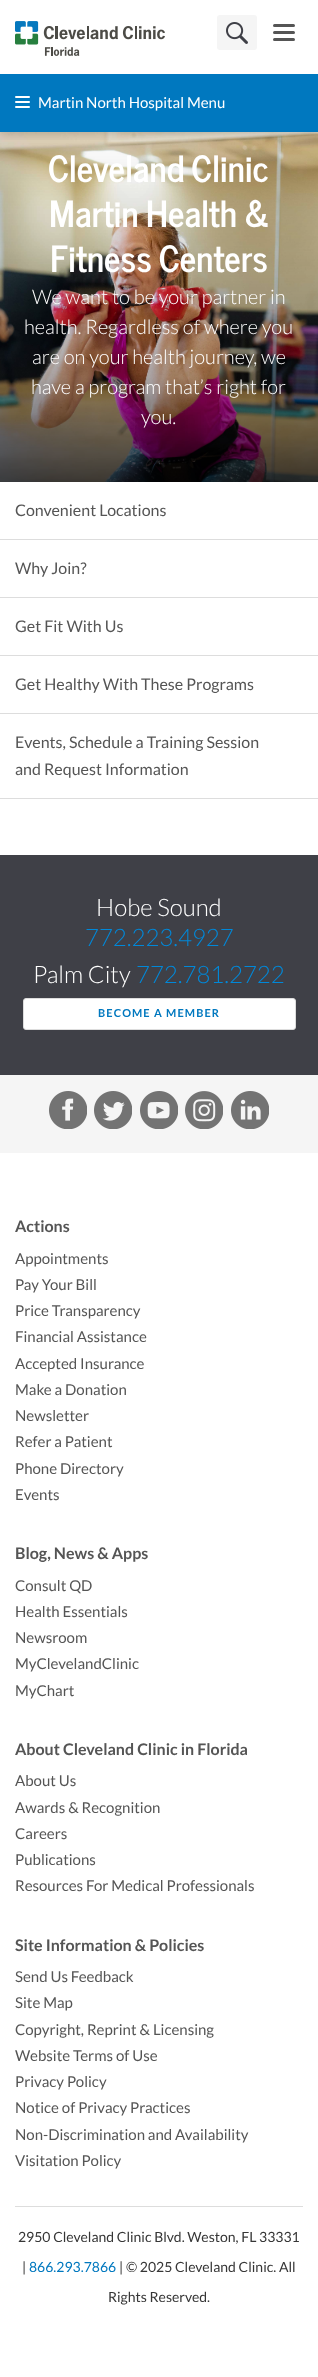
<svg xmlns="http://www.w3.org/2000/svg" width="318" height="2377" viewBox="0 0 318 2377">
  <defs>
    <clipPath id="clip1"><path d="M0 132h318v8H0z"/></clipPath>
  </defs>
  <rect width="100%" height="100%" fill="#fff"/>
  <image x="0" y="132" width="318" height="350" href="img/3.png"/>
  <g clip-path="url(#clip1)">
    <path d="M0 2h318v132H0z" fill="#00000033" filter="blur(5px)"/>
  </g>
  <image x="15" y="21" width="150" height="35" href="img/1.png"/>
  <rect x="217" y="15" width="40" height="35" rx="3" fill="#f5f5f5"/>
  <image x="226" y="22" width="22" height="22" href="img/2.png"/>
  <rect x="273" y="24" width="22" height="3" rx="1.5" fill="#555"/>
  <rect x="273" y="31" width="22" height="3" rx="1.5" fill="#555"/>
  <rect x="273" y="38" width="22" height="3" rx="1.5" fill="#555"/>
  <path d="M0 74h318v58H0z" fill="#0078bf"/>
  <rect x="15" y="96" width="15" height="2" rx="1" fill="#fff"/>
  <rect x="15" y="101" width="15" height="2" rx="1" fill="#fff"/>
  <rect x="15" y="106" width="15" height="2" rx="1" fill="#fff"/>
  <path d="M0 539h318v1H0z" fill="#ddd"/>
  <path d="M0 597h318v1H0z" fill="#ddd"/>
  <path d="M0 655h318v1H0z" fill="#ddd"/>
  <path d="M0 713h318v1H0z" fill="#ddd"/>
  <path d="M0 798h318v1H0z" fill="#ddd"/>
  <path d="M0 855h318v220H0z" fill="#3f4047"/>
  <rect x="23.5" y="998.5" width="272" height="31" rx="2.5" fill="#fff" stroke="#ddd"/>
  <path d="M0 1075h318v78H0z" fill="#f5f5f5"/>
  <image x="49" y="1091" width="38" height="38" href="img/4.png"/>
  <image x="94" y="1091" width="38" height="38" href="img/5.png"/>
  <image x="140" y="1091" width="38" height="38" href="img/6.png"/>
  <image x="185" y="1091" width="38" height="38" href="img/7.png"/>
  <image x="231" y="1091" width="38" height="38" href="img/8.png"/>
  <path d="M15 2206h288v1H15z" fill="#ddd"/>
  <text x="38" y="108" font-family="Lato" font-size="15" fill="#fff">Martin North Hospital Menu</text>
  <g font-family="News Cycle" font-size="36" font-weight="bold" fill="#fff">
    <text x="48" y="182" word-spacing="-2">Cleveland Clinic</text>
    <text x="49" y="227" word-spacing="-2">Martin Health &amp;</text>
    <text x="50" y="272" word-spacing="-2">Fitness Centers</text>
  </g>
  <g font-family="Lato" font-size="20" font-weight="300" fill="#fff">
    <text x="32" y="304">We want to be your partner in</text>
    <text x="24" y="334">health. Regardless of where you</text>
    <text x="32" y="364">are on your health journey, we</text>
    <text x="31" y="394">have a program that’s right for</text>
    <text x="141" y="424">you.</text>
  </g>
  <g font-family="Lato" font-size="16" fill="#555">
    <text x="15" y="516">Convenient Locations</text>
    <text x="15" y="574">Why Join?</text>
    <text x="15" y="632">Get Fit With Us</text>
    <text x="15" y="690">Get Healthy With These Programs</text>
    <text x="15" y="748">Events, Schedule a Training Session</text>
    <text x="15" y="775">and Request Information</text>
  </g>
  <text x="96" y="916" font-family="Lato" font-size="24" font-weight="300" fill="#fff">Hobe Sound</text>
  <text x="85" y="946" font-family="Lato" font-size="24" font-weight="300" fill="#0088d9">772.223.4927</text>
  <text x="33" y="983" font-family="Lato" font-size="24" font-weight="300" fill="#fff">Palm City</text>
  <text x="136" y="983" font-family="Lato" font-size="24" font-weight="300" fill="#0088d9">772.781.2722</text>
  <text x="98" y="1017" font-family="Lato" font-size="11" font-weight="bold" letter-spacing="1.1" fill="#0078bf">BECOME A MEMBER</text>
  <text x="15" y="1232" font-family="Lato" font-size="16" font-weight="bold" fill="#555">Actions</text>
  <g font-family="Lato" font-size="15" fill="#555">
    <text x="15" y="1264">Appointments</text>
    <text x="15" y="1290">Pay Your Bill</text>
    <text x="15" y="1316">Price Transparency</text>
    <text x="15" y="1342">Financial Assistance</text>
    <text x="15" y="1369">Accepted Insurance</text>
    <text x="15" y="1395">Make a Donation</text>
    <text x="15" y="1421">Newsletter</text>
    <text x="15" y="1447">Refer a Patient</text>
    <text x="15" y="1474">Phone Directory</text>
    <text x="15" y="1500">Events</text>
  </g>
  <text x="15" y="1559" font-family="Lato" font-size="16" font-weight="bold" fill="#555">Blog, News &amp; Apps</text>
  <g font-family="Lato" font-size="15" fill="#555">
    <text x="15" y="1591">Consult QD</text>
    <text x="15" y="1617">Health Essentials</text>
    <text x="15" y="1643">Newsroom</text>
    <text x="15" y="1669">MyClevelandClinic</text>
    <text x="15" y="1696">MyChart</text>
  </g>
  <text x="15" y="1755" font-family="Lato" font-size="16" font-weight="bold" fill="#555">About Cleveland Clinic in Florida</text>
  <g font-family="Lato" font-size="15" fill="#555">
    <text x="15" y="1786">About Us</text>
    <text x="15" y="1813">Awards &amp; Recognition</text>
    <text x="15" y="1839">Careers</text>
    <text x="15" y="1865">Publications</text>
    <text x="15" y="1891">Resources For Medical Professionals</text>
  </g>
  <text x="15" y="1951" font-family="Lato" font-size="16" font-weight="bold" fill="#555">Site Information &amp; Policies</text>
  <g font-family="Lato" font-size="15" fill="#555">
    <text x="15" y="1982">Send Us Feedback</text>
    <text x="15" y="2008">Site Map</text>
    <text x="15" y="2035">Copyright, Reprint &amp; Licensing</text>
    <text x="15" y="2061">Website Terms of Use</text>
    <text x="15" y="2087">Privacy Policy</text>
    <text x="15" y="2113">Notice of Privacy Practices</text>
    <text x="15" y="2140">Non-Discrimination and Availability</text>
    <text x="15" y="2166">Visitation Policy</text>
  </g>
  <g font-family="Lato" font-size="14" fill="#363636">
    <text x="18" y="2242">2950 Cleveland Clinic Blvd. Weston, FL 33331</text>
    <text x="22" y="2272">|</text>
  </g>
  <text x="29" y="2272" font-family="Lato" font-size="14" fill="#0078bf">866.293.7866</text>
  <g font-family="Lato" font-size="14" fill="#363636">
    <text x="119" y="2272">| © 2025 Cleveland Clinic. All</text>
    <text x="108" y="2302">Rights Reserved.</text>
  </g>
</svg>
